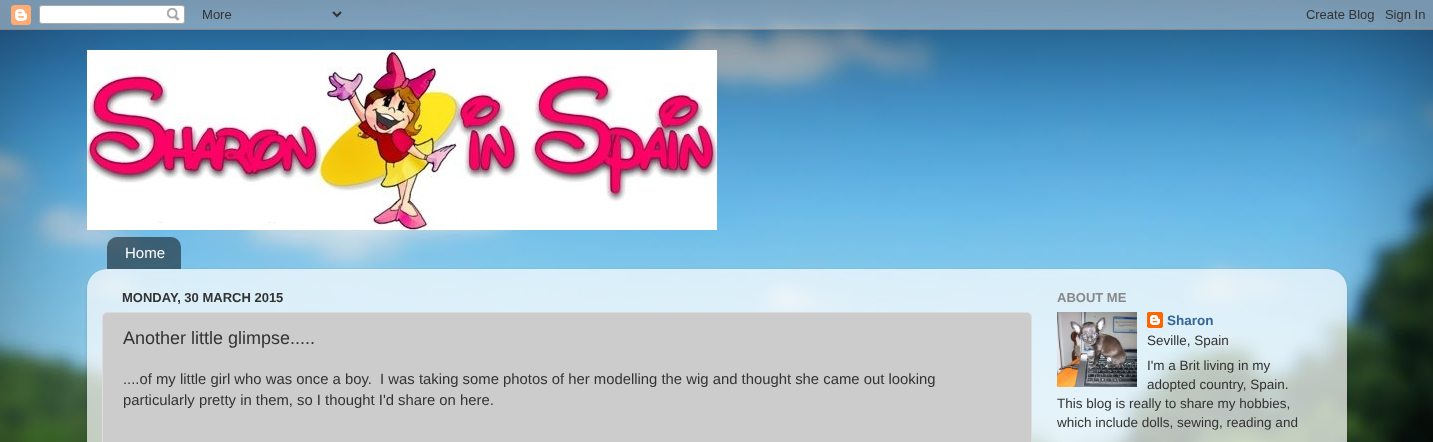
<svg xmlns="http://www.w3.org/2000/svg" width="1433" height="442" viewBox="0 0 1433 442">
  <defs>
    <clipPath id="clip1"><path d="M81 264H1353V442H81ZM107 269H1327C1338 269 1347 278 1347 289V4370H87V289C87 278 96 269 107 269Z" clip-rule="evenodd"/></clipPath>
  </defs>
  <rect width="100%" height="100%" fill="#fff"/>
  <image x="0" y="0" width="1433" height="442" href="img/1.png"/>
  <image x="0" y="0" width="1433" height="30" href="img/2.png"/>
  <image x="87" y="50" width="630" height="180" href="img/3.png"/>
  <image x="107" y="237" width="74" height="32" href="img/4.png"/>
  <g clip-path="url(#clip1)">
    <rect x="87" y="270" width="1260" height="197" rx="20" fill="#00000026" filter="blur(1.5px)"/>
  </g>
  <image x="87" y="269" width="1260" height="173" href="img/5.png"/>
  <rect x="102.5" y="312.5" width="929" height="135" rx="4.5" fill="#ccc" stroke="#ddd"/>
  <image x="1057" y="312" width="80" height="75" href="img/6.png"/>
  <image x="1147" y="312" width="16" height="16" href="img/7.png"/>
  <text x="125" y="258" font-family="Liberation Sans" font-size="15" fill="#fff">Home</text>
  <text x="122" y="302" font-family="Liberation Sans" font-size="13" font-weight="bold" fill="#333">MONDAY, 30 MARCH 2015</text>
  <text x="123" y="344" font-family="Liberation Sans" font-size="18" fill="#333">Another little glimpse.....</text>
  <g font-family="Liberation Sans" font-size="14.85" fill="#333">
    <text x="123" y="384" xml:space="preserve">....of my little girl who was once a boy.  I was taking some photos of her modelling the wig and thought she came out looking</text>
    <text x="123" y="405">particularly pretty in them, so I thought I'd share on here.</text>
  </g>
  <text x="1057" y="302" font-family="Liberation Sans" font-size="13" font-weight="bold" fill="#888">ABOUT ME</text>
  <text x="1167" y="325" font-family="Liberation Sans" font-size="13.5" font-weight="bold" fill="#369">Sharon</text>
  <g font-family="Liberation Sans" font-size="13.5" fill="#333">
    <text x="1147" y="345">Seville, Spain</text>
    <text x="1147" y="370">I'm a Brit living in my</text>
    <text x="1147" y="389">adopted country, Spain.</text>
    <text x="1057" y="408">This blog is really to share my hobbies,</text>
    <text x="1057" y="427">which include dolls, sewing, reading and</text>
  </g>
</svg>
